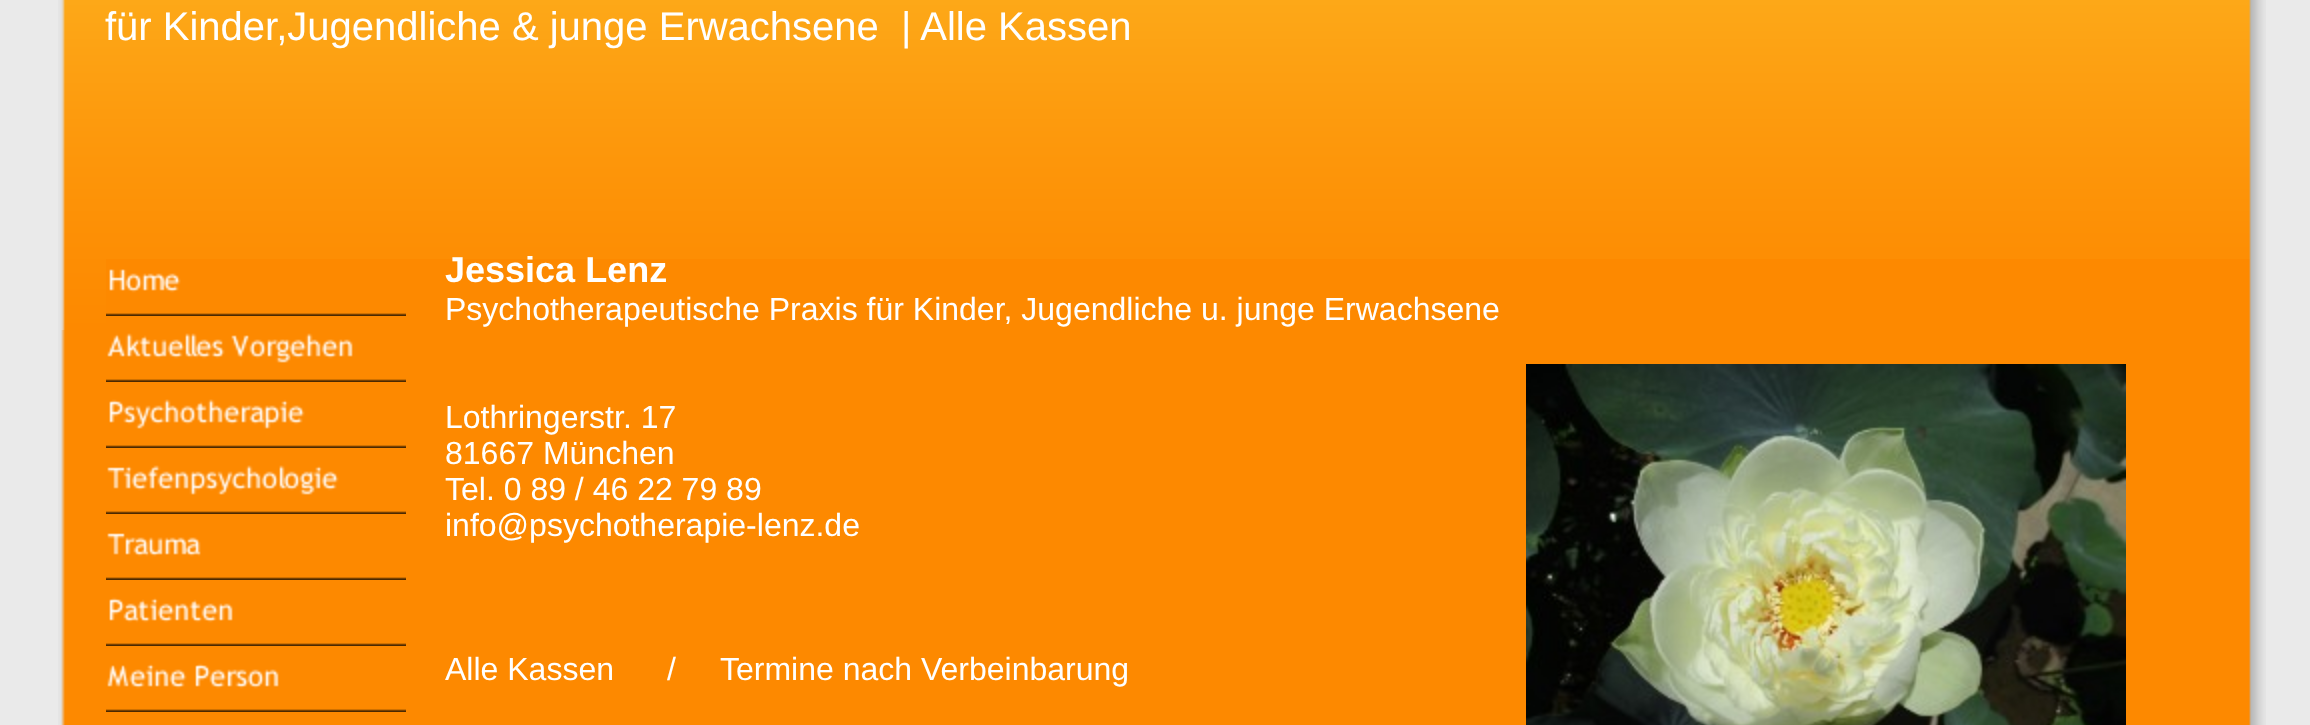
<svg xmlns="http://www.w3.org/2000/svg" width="2310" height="725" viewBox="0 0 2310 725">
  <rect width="100%" height="100%" fill="#eaeaea"/>
  <image x="58" y="0" width="48" height="725" href="img/1.png"/>
  <image x="61" y="0" width="45" height="330" href="img/2.png"/>
  <path d="M106 259h2100v466H106z" fill="#fd8900"/>
  <image x="106" y="0" width="2100" height="259" href="img/3.png"/>
  <image x="106" y="269" width="300" height="47" href="img/4.png"/>
  <image x="106" y="333" width="300" height="49" href="img/5.png"/>
  <image x="106" y="399" width="300" height="49" href="img/6.png"/>
  <image x="106" y="465" width="300" height="49" href="img/7.png"/>
  <image x="106" y="533" width="300" height="47" href="img/8.png"/>
  <image x="106" y="597" width="300" height="49" href="img/9.png"/>
  <image x="106" y="663" width="300" height="49" href="img/10.png"/>
  <image x="1526" y="364" width="600" height="361" href="img/11.png"/>
  <image x="2206" y="0" width="60" height="725" href="img/12.png"/>
  <image x="2206" y="0" width="45" height="259" href="img/13.png"/>
  <g font-family="Liberation Sans" font-size="40" fill="#fff">
    <text x="105" y="40">für Kinder,Jugendliche &amp; junge Erwachsene</text>
    <text x="901" y="40">| Alle Kassen</text>
  </g>
  <text x="445" y="282" font-family="Liberation Sans" font-size="36" font-weight="bold" fill="#fff">Jessica Lenz</text>
  <g font-family="Liberation Sans" font-size="32" fill="#fff">
    <text x="445" y="320">Psychotherapeutische Praxis für Kinder, Jugendliche u. junge Erwachsene</text>
    <text x="445" y="428">Lothringerstr. 17</text>
    <text x="445" y="464">81667 München</text>
    <text x="445" y="500">Tel. 0 89 / 46 22 79 89</text>
    <text x="445" y="536">info@psychotherapie-lenz.de</text>
    <text x="445" y="680">Alle Kassen</text>
    <text x="667" y="680">/</text>
    <text x="720" y="680">Termine nach Verbeinbarung</text>
  </g>
</svg>
